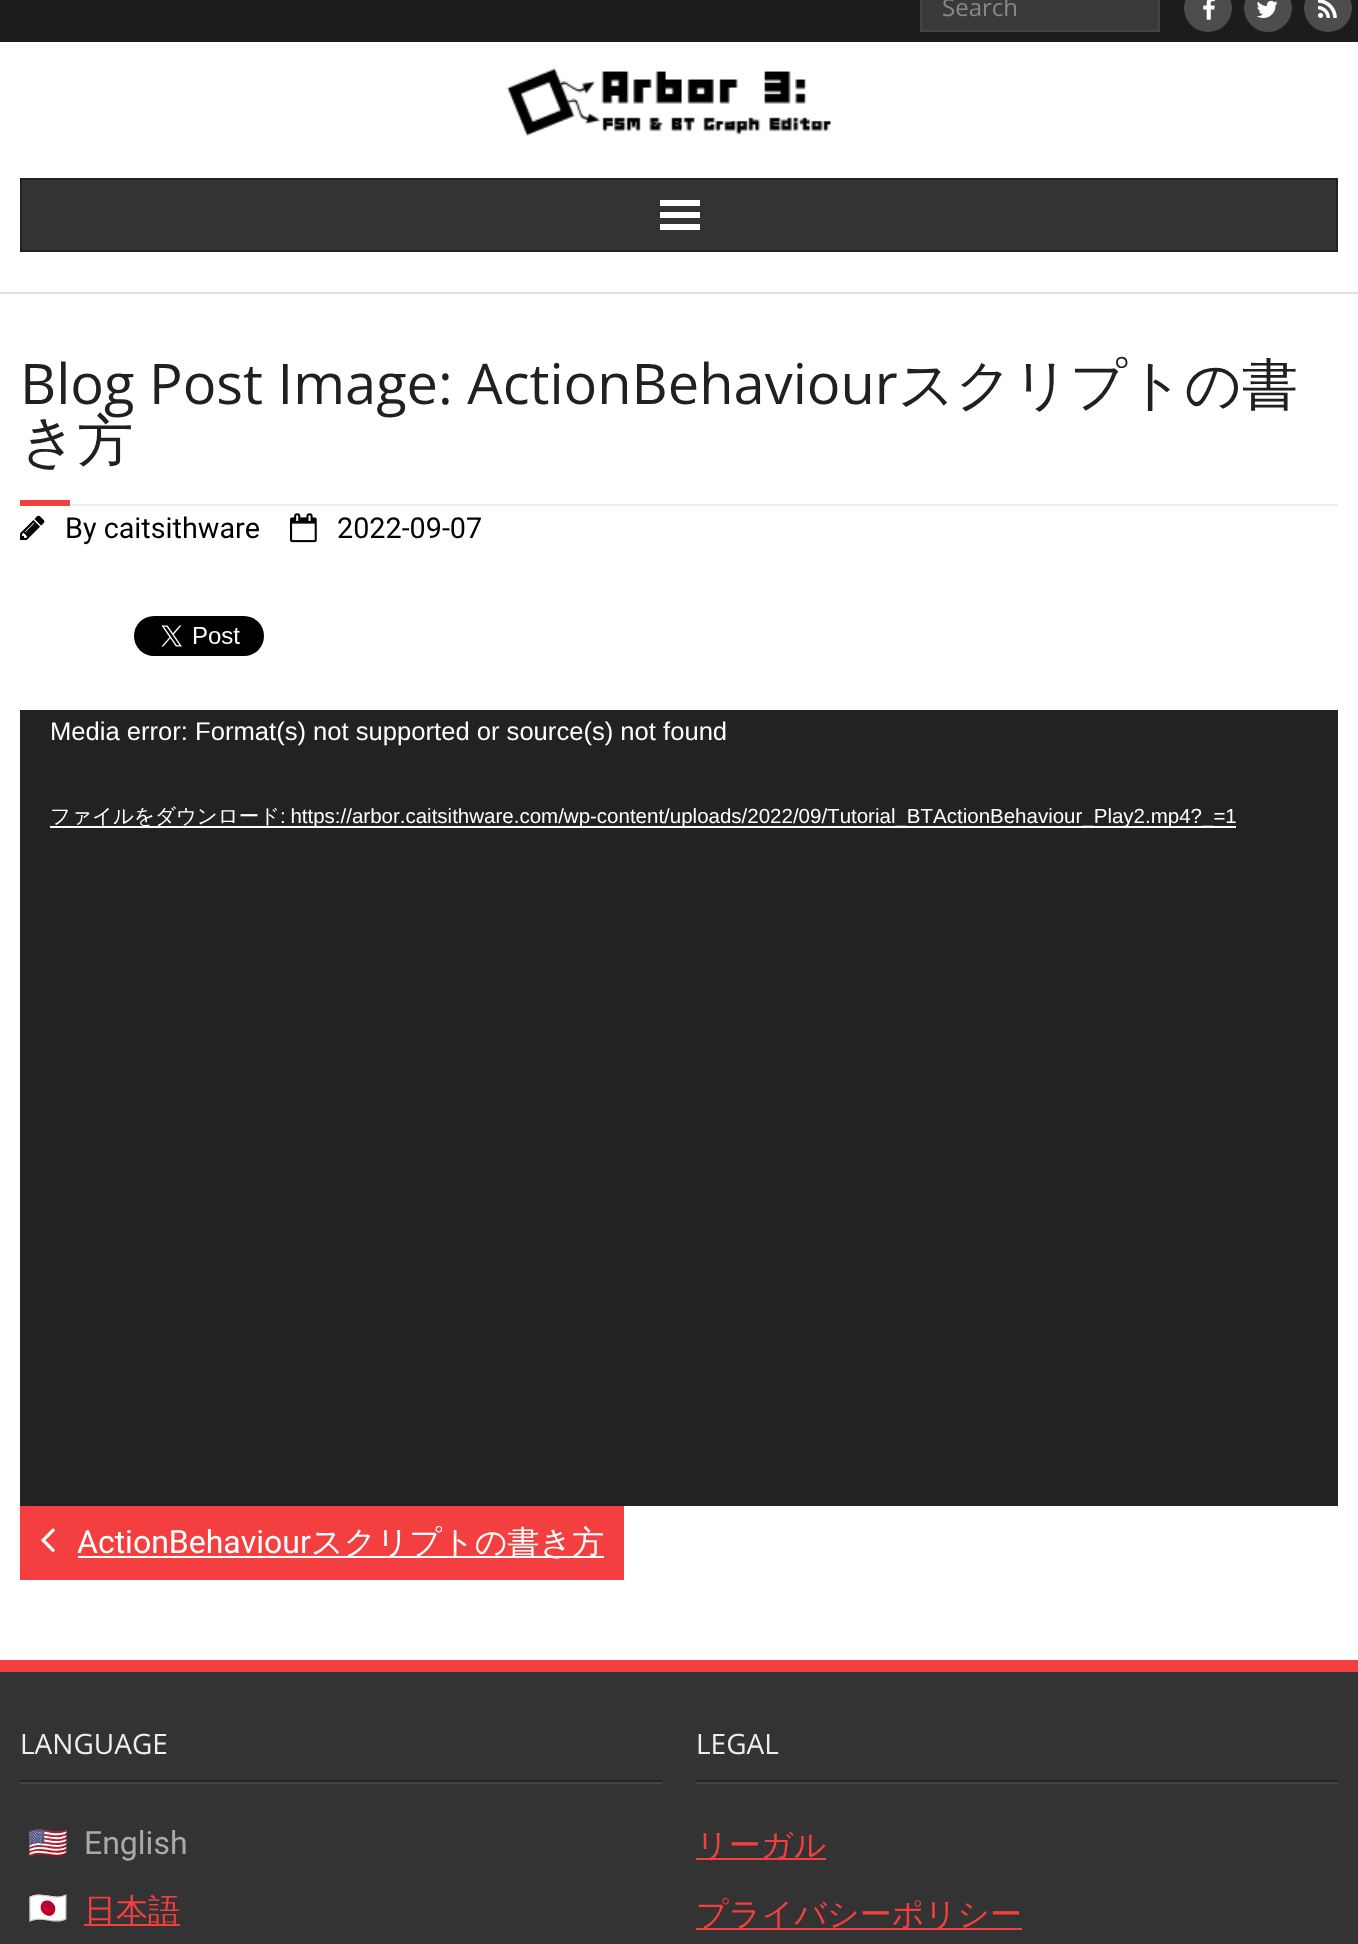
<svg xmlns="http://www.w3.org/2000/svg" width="1358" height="1944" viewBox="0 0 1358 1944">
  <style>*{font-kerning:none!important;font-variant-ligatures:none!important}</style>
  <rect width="100%" height="100%" fill="#fff"/>
  <path d="M0 0h1358v42H0z" fill="#1c1c1c"/>
  <path d="M921 -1h238v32H921z" fill="#3a3a3a" stroke="#444" stroke-width="2"/>
  <circle cx="1208" cy="8" r="24" fill="#4d4d4d"/>
  <image x="1203" y="0" width="12" height="20" href="img/1.png"/>
  <circle cx="1268" cy="8" r="24" fill="#4d4d4d"/>
  <image x="1256" y="0" width="22" height="18" href="img/2.png"/>
  <circle cx="1328" cy="8" r="24" fill="#4d4d4d"/>
  <image x="1318" y="0" width="19" height="18" href="img/3.png"/>
  <path d="M0 292h1358v2H0z" fill="#e0e0e0"/>
  <image x="507" y="68" width="325" height="68" href="img/4.png"/>
  <path d="M21 179h1316v72H21z" fill="#333" stroke="#222" stroke-width="2"/>
  <path d="M660 200h40v6H660z" fill="#fff"/>
  <path d="M660 212h40v6H660z" fill="#fff"/>
  <path d="M660 224h40v6H660z" fill="#fff"/>
  <path d="M20 500h50v6H20z" fill="#f33f3f"/>
  <path d="M70 504h1268v2H70z" fill="#eee"/>
  <image x="20" y="515" width="25" height="26" href="img/5.png"/>
  <image x="290" y="513" width="27" height="30" href="img/6.png"/>
  <image x="134" y="616" width="130" height="40" href="img/7.png"/>
  <path d="M20 710h1318v796H20z" fill="#222"/>
  <path d="M50 826h1186v2H50z" fill="#fff"/>
  <path d="M20 1506h604v74H20z" fill="#f33f3f"/>
  <image x="41" y="1528" width="14" height="25" href="img/8.png"/>
  <path d="M78 1556h526v2H78z" fill="#fff"/>
  <path d="M0 1672h1358v272H0z" fill="#333"/>
  <path d="M0 1660h1358v12H0z" fill="#f33f3f"/>
  <path d="M20 1782h642v2H20z" fill="#444"/>
  <path d="M20 1780h642v2H20z" fill="#222"/>
  <path d="M84 1924h96v2H84z" fill="#f33f3f"/>
  <path d="M696 1782h642v2H696z" fill="#444"/>
  <path d="M696 1780h642v2H696z" fill="#222"/>
  <path d="M696 1858h130v2H696z" fill="#f33f3f"/>
  <path d="M696 1928h326v2H696z" fill="#f33f3f"/>
  <text x="942" y="16" font-family="Open Sans" font-size="24" fill="#888">Search</text>
  <text x="20" y="404" font-family="Open Sans" font-size="56" fill="#202020">Blog Post Image: ActionBehaviour</text>
  <g font-family="WenQuanYi Zen Hei" font-size="56" font-weight="500" fill="#202020">
    <text x="898" y="404">スクリプトの書</text>
    <text x="20" y="460">き方</text>
  </g>
  <g font-family="Roboto" font-size="28.75" fill="#000">
    <text x="65" y="538">By caitsithware</text>
    <text x="337" y="538">2022-09-07</text>
  </g>
  <text x="50" y="740" font-family="Liberation Sans" font-size="25.6" fill="#fff">Media error: Format(s) not supported or source(s) not found</text>
  <text x="50" y="823" font-family="WenQuanYi Zen Hei" font-size="20.5" font-weight="500" fill="#fff">ファイルをダウンロード</text>
  <text x="280" y="823" word-spacing="-1" font-family="Liberation Sans" font-size="20.5" fill="#fff">: https://arbor.caitsithware.com/wp-content/uploads/2022/09/Tutorial_BTActionBehaviour_Play2.mp4?_=1</text>
  <text x="77" y="1553" font-family="Roboto" font-size="32" fill="#fff">ActionBehaviour</text>
  <text x="311" y="1553" font-family="WenQuanYi Zen Hei" font-size="32" font-weight="500" fill="#fff">スクリプトの書き方</text>
  <text x="20" y="1754" font-family="Open Sans" font-size="28" fill="#eee">LANGUAGE</text>
  <text x="28" y="1854" font-family="Noto Color Emoji" font-size="32" fill="#aaa">🇺🇸</text>
  <text x="84" y="1854" font-family="Roboto" font-size="32" fill="#aaa">English</text>
  <text x="28" y="1919" font-family="Noto Color Emoji" font-size="32" fill="#aaa">🇯🇵</text>
  <text x="84" y="1921" font-family="WenQuanYi Zen Hei" font-size="32" font-weight="500" fill="#f33f3f">日本語</text>
  <text x="696" y="1754" font-family="Open Sans" font-size="28" fill="#eee">LEGAL</text>
  <g font-family="WenQuanYi Zen Hei" font-size="32" font-weight="500" fill="#f33f3f">
    <text x="696" y="1856">リーガル</text>
    <text x="696" y="1925">プライバシーポリシー</text>
  </g>
</svg>
